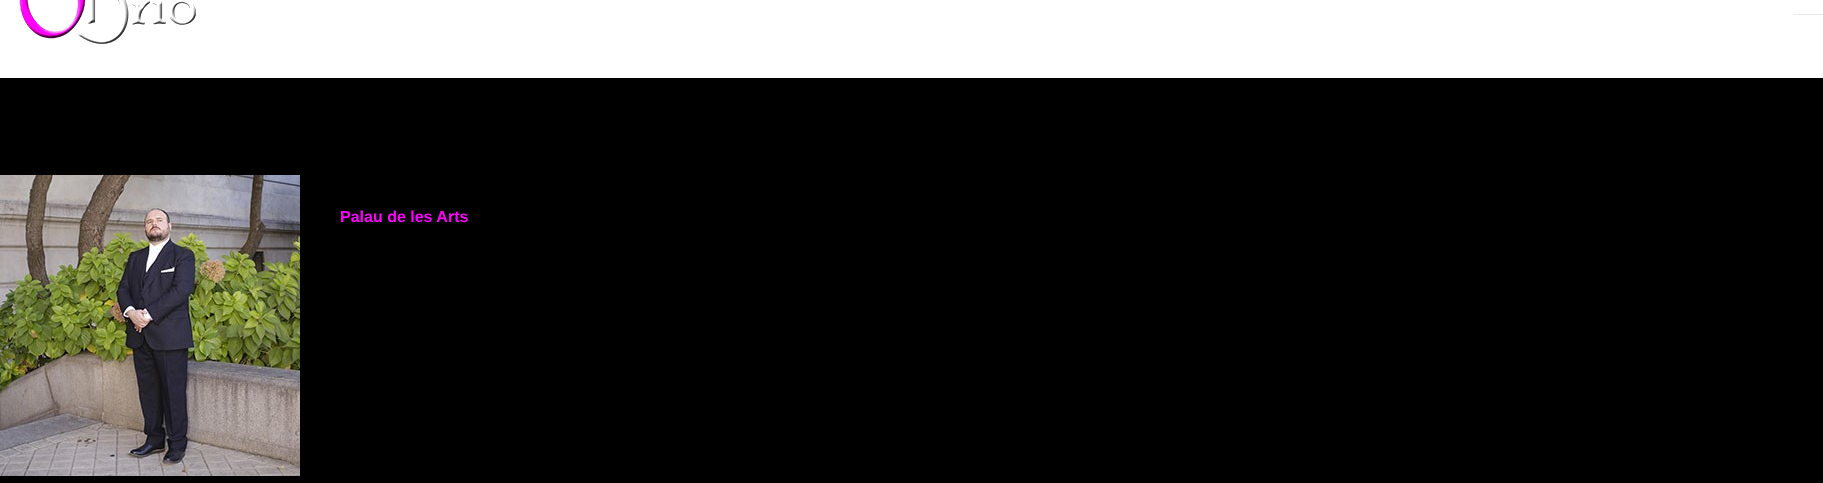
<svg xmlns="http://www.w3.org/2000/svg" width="1823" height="483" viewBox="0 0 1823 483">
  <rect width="100%" height="100%" fill="#000"/>
  <path d="M0 0h1823v78H0z" fill="#fff"/>
  <image x="19" y="0" width="177" height="44" href="img/1.png"/>
  <path d="M1793 14h30v1H1793z" fill="#eaeaea"/>
  <image x="0" y="175" width="300" height="301" href="img/2.png"/>
  <text x="340" y="222" font-family="Liberation Sans" font-size="16" font-weight="bold" fill="#f0f">Palau de les Arts</text>
</svg>
